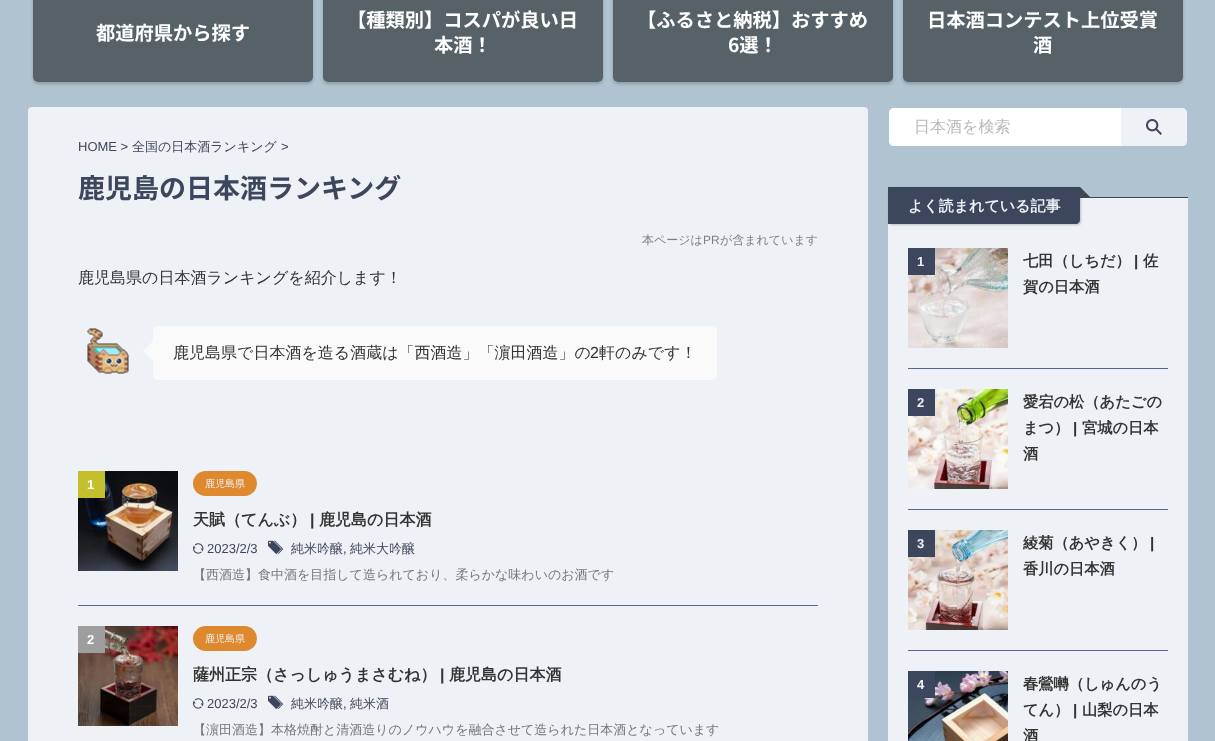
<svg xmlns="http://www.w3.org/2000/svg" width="1215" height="741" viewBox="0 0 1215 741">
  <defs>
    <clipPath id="clip1"><path d="M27 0H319V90H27ZM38-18H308C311-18 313-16 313-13V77C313 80 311 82 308 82H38C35 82 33 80 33 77V-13C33-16 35-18 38-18Z" clip-rule="evenodd"/></clipPath>
    <clipPath id="clip2"><path d="M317 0H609V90H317ZM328-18H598C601-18 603-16 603-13V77C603 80 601 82 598 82H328C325 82 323 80 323 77V-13C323-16 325-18 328-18Z" clip-rule="evenodd"/></clipPath>
    <clipPath id="clip3"><path d="M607 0H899V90H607ZM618-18H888C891-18 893-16 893-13V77C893 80 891 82 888 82H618C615 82 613 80 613 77V-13C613-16 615-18 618-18Z" clip-rule="evenodd"/></clipPath>
    <clipPath id="clip4"><path d="M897 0H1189V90H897ZM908-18H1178C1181-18 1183-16 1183-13V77C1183 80 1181 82 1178 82H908C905 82 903 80 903 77V-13C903-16 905-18 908-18Z" clip-rule="evenodd"/></clipPath>
  </defs>
  <rect width="100%" height="100%" fill="#afc4d0"/>
  <g clip-path="url(#clip1)">
    <rect x="33" y="-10" width="280" height="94" rx="5" fill="#00000033" filter="blur(1.5px)"/>
  </g>
  <rect x="33" y="-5" width="280" height="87" rx="5" fill="#00000080"/>
  <g clip-path="url(#clip2)">
    <rect x="323" y="-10" width="280" height="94" rx="5" fill="#00000033" filter="blur(1.5px)"/>
  </g>
  <rect x="323" y="-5" width="280" height="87" rx="5" fill="#00000080"/>
  <g clip-path="url(#clip3)">
    <rect x="613" y="-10" width="280" height="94" rx="5" fill="#00000033" filter="blur(1.5px)"/>
  </g>
  <rect x="613" y="-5" width="280" height="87" rx="5" fill="#00000080"/>
  <g clip-path="url(#clip4)">
    <rect x="903" y="-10" width="280" height="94" rx="5" fill="#00000033" filter="blur(1.5px)"/>
  </g>
  <rect x="903" y="-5" width="280" height="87" rx="5" fill="#00000080"/>
  <rect x="28" y="107" width="840" height="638" rx="4" fill="#eef1f5"/>
  <image x="87" y="328" width="42" height="46" href="img/1.png"/>
  <path d="M153 341V361L143 351Z" fill="#fafafa"/>
  <rect x="153" y="326" width="564" height="54" rx="5" fill="#fafafa"/>
  <path d="M78 605h740v1H78z" fill="#526892"/>
  <image x="78" y="471" width="100" height="100" href="img/2.png"/>
  <path d="M78 471h27v27H78z" fill="#c4bf2c"/>
  <rect x="193" y="471" width="64" height="25" rx="12.5" fill="#df892e"/>
  <image x="193" y="543" width="11" height="11" href="img/3.png"/>
  <image x="268" y="540" width="15" height="14" href="img/4.png"/>
  <image x="78" y="626" width="100" height="100" href="img/5.png"/>
  <path d="M78 626h27v27H78z" fill="#9e9e9e"/>
  <rect x="193" y="626" width="64" height="25" rx="12.5" fill="#df892e"/>
  <image x="193" y="698" width="11" height="11" href="img/3.png"/>
  <image x="268" y="695" width="15" height="14" href="img/4.png"/>
  <path d="M894 108H1121V146H894C891 146 889 144 889 141V113C889 110 891 108 894 108Z" fill="#fff"/>
  <path d="M1121 108H1182C1185 108 1187 110 1187 113V141C1187 144 1185 146 1182 146H1121Z" fill="#eef1f5"/>
  <image x="1146" y="119" width="16" height="16" href="img/6.png"/>
  <path d="M888 198h300v543H888z" fill="#eef1f5"/>
  <path d="M1080 197h108v1H1080z" fill="#3c465d"/>
  <rect x="889" y="188" width="192" height="37" rx="4" fill="#00000033" filter="blur(1px)"/>
  <path d="M888 187H1080V220C1080 222 1078 224 1076 224H888Z" fill="#3c465d"/>
  <path d="M1090 197H1080L1085 192Z" fill="#3c465d"/>
  <path d="M1080 197V187L1085 192Z" fill="#3c465d"/>
  <path d="M1090 197H1080L1085 192Z" fill="#33333333"/>
  <path d="M1080 197V187L1085 192Z" fill="#33333333"/>
  <path d="M908 368h260v1H908z" fill="#526892"/>
  <image x="908" y="248" width="100" height="100" href="img/7.png"/>
  <path d="M908 248h27v27H908z" fill="#3c465d"/>
  <path d="M908 509h260v1H908z" fill="#526892"/>
  <image x="908" y="389" width="100" height="100" href="img/8.png"/>
  <path d="M908 389h27v27H908z" fill="#3c465d"/>
  <path d="M908 650h260v1H908z" fill="#526892"/>
  <image x="908" y="530" width="100" height="100" href="img/9.png"/>
  <path d="M908 530h27v27H908z" fill="#3c465d"/>
  <image x="908" y="671" width="100" height="70" href="img/10.png"/>
  <path d="M908 671h27v27H908z" fill="#3c465d"/>
  <g font-family="Noto Sans JP" font-size="19.25" font-weight="bold" fill="#fff">
    <text x="96" y="40">都道府県から探す</text>
    <text x="347" y="27">【種類別】コスパが良い日</text>
    <text x="434" y="52">本酒！</text>
    <text x="637" y="27">【ふるさと納税】おすすめ</text>
    <text x="728" y="52">6選！</text>
    <text x="927" y="27">日本酒コンテスト上位受賞</text>
    <text x="1033" y="52">酒</text>
  </g>
  <text x="78" y="151" font-family="Liberation Sans" font-size="13" fill="#3c465d">HOME &gt;</text>
  <text x="132" y="151" font-family="WenQuanYi Zen Hei" font-size="13" font-weight="500" fill="#3c465d">全国の日本酒ランキング</text>
  <text x="281" y="151" font-family="Liberation Sans" font-size="13" fill="#3c465d">&gt;</text>
  <text x="78" y="198" font-family="Noto Sans JP" font-size="27" font-weight="bold" fill="#3c465d">鹿児島の日本酒ランキング</text>
  <text x="642" y="244" font-family="WenQuanYi Zen Hei" font-size="12" font-weight="500" fill="#808080">本ページは</text>
  <text x="703" y="244" font-family="Liberation Sans" font-size="12" fill="#808080">PR</text>
  <text x="720" y="244" font-family="WenQuanYi Zen Hei" font-size="12" font-weight="500" fill="#808080">が含まれています</text>
  <g font-family="WenQuanYi Zen Hei" font-size="16" font-weight="500" fill="#333">
    <text x="78" y="283">鹿児島県の日本酒ランキングを紹介します！</text>
    <text x="173" y="358">鹿児島県で日本酒を造る酒蔵は「西酒造」「濵田酒造」の</text>
  </g>
  <text x="590" y="358" font-family="Liberation Sans" font-size="16" fill="#333">2</text>
  <text x="599" y="358" font-family="WenQuanYi Zen Hei" font-size="16" font-weight="500" fill="#333">軒のみです！</text>
  <text x="87" y="489" font-family="Liberation Sans" font-size="13" font-weight="bold" fill="#fff">1</text>
  <text x="205" y="487" font-family="WenQuanYi Zen Hei" font-size="10" font-weight="500" fill="#eef1f5">鹿児島県</text>
  <text x="193" y="525" font-family="WenQuanYi Zen Hei" font-size="16" font-weight="bold" fill="#333">天賦（てんぶ）</text>
  <text x="310" y="525" font-family="Liberation Sans" font-size="16" font-weight="bold" fill="#333">|</text>
  <text x="319" y="525" font-family="WenQuanYi Zen Hei" font-size="16" font-weight="bold" fill="#333">鹿児島の日本酒</text>
  <text x="207" y="553" font-family="Liberation Sans" font-size="13" fill="#3c465d">2023/2/3</text>
  <text x="291" y="553" font-family="WenQuanYi Zen Hei" font-size="13" font-weight="500" fill="#3c465d">純米吟醸</text>
  <text x="343" y="553" font-family="Liberation Sans" font-size="13" fill="#3c465d">,</text>
  <text x="350" y="553" font-family="WenQuanYi Zen Hei" font-size="13" font-weight="500" fill="#3c465d">純米大吟醸</text>
  <text x="193" y="579" font-family="WenQuanYi Zen Hei" font-size="13" font-weight="500" fill="#777">【西酒造】食中酒を目指して造られており、柔らかな味わいのお酒です</text>
  <text x="87" y="644" font-family="Liberation Sans" font-size="13" font-weight="bold" fill="#fff">2</text>
  <text x="205" y="642" font-family="WenQuanYi Zen Hei" font-size="10" font-weight="500" fill="#eef1f5">鹿児島県</text>
  <text x="193" y="680" font-family="WenQuanYi Zen Hei" font-size="16" font-weight="bold" fill="#333">薩州正宗（さっしゅうまさむね）</text>
  <text x="440" y="680" font-family="Liberation Sans" font-size="16" font-weight="bold" fill="#333">|</text>
  <text x="449" y="680" font-family="WenQuanYi Zen Hei" font-size="16" font-weight="bold" fill="#333">鹿児島の日本酒</text>
  <text x="207" y="708" font-family="Liberation Sans" font-size="13" fill="#3c465d">2023/2/3</text>
  <text x="291" y="708" font-family="WenQuanYi Zen Hei" font-size="13" font-weight="500" fill="#3c465d">純米吟醸</text>
  <text x="343" y="708" font-family="Liberation Sans" font-size="13" fill="#3c465d">,</text>
  <text x="350" y="708" font-family="WenQuanYi Zen Hei" font-size="13" font-weight="500" fill="#3c465d">純米酒</text>
  <text x="193" y="734" font-family="WenQuanYi Zen Hei" font-size="13" font-weight="500" fill="#777">【濵田酒造】本格焼酎と清酒造りのノウハウを融合させて造られた日本酒となっています</text>
  <text x="914" y="132" font-family="WenQuanYi Zen Hei" font-size="16" font-weight="500" fill="#bababa">日本酒を検索</text>
  <text x="908" y="211" font-family="WenQuanYi Zen Hei" font-size="15" font-weight="bold" fill="#eef1f5">よく読まれている記事</text>
  <text x="917" y="266" font-family="Liberation Sans" font-size="13" font-weight="bold" fill="#eef1f5">1</text>
  <text x="1023" y="266" font-family="WenQuanYi Zen Hei" font-size="15.25" font-weight="bold" fill="#333">七田（しちだ）</text>
  <text x="1134" y="266" font-family="Liberation Sans" font-size="15.25" font-weight="bold" fill="#333">|</text>
  <g font-family="WenQuanYi Zen Hei" font-size="15.25" font-weight="bold" fill="#333">
    <text x="1143" y="266">佐</text>
    <text x="1023" y="292">賀の日本酒</text>
  </g>
  <text x="917" y="407" font-family="Liberation Sans" font-size="13" font-weight="bold" fill="#eef1f5">2</text>
  <g font-family="WenQuanYi Zen Hei" font-size="15.25" font-weight="bold" fill="#333">
    <text x="1023" y="407">愛宕の松（あたごの</text>
    <text x="1023" y="433">まつ）</text>
  </g>
  <text x="1073" y="433" font-family="Liberation Sans" font-size="15.25" font-weight="bold" fill="#333">|</text>
  <g font-family="WenQuanYi Zen Hei" font-size="15.25" font-weight="bold" fill="#333">
    <text x="1082" y="433">宮城の日本</text>
    <text x="1023" y="459">酒</text>
  </g>
  <text x="917" y="548" font-family="Liberation Sans" font-size="13" font-weight="bold" fill="#eef1f5">3</text>
  <text x="1023" y="548" font-family="WenQuanYi Zen Hei" font-size="15.25" font-weight="bold" fill="#333">綾菊（あやきく）</text>
  <text x="1150" y="548" font-family="Liberation Sans" font-size="15.25" font-weight="bold" fill="#333">|</text>
  <text x="1023" y="574" font-family="WenQuanYi Zen Hei" font-size="15.25" font-weight="bold" fill="#333">香川の日本酒</text>
  <text x="917" y="689" font-family="Liberation Sans" font-size="13" font-weight="bold" fill="#eef1f5">4</text>
  <g font-family="WenQuanYi Zen Hei" font-size="15.25" font-weight="bold" fill="#333">
    <text x="1023" y="689">春鶯囀（しゅんのう</text>
    <text x="1023" y="715">てん）</text>
  </g>
  <text x="1073" y="715" font-family="Liberation Sans" font-size="15.25" font-weight="bold" fill="#333">|</text>
  <g font-family="WenQuanYi Zen Hei" font-size="15.25" font-weight="bold" fill="#333">
    <text x="1082" y="715">山梨の日本</text>
    <text x="1023" y="741">酒</text>
  </g>
</svg>
